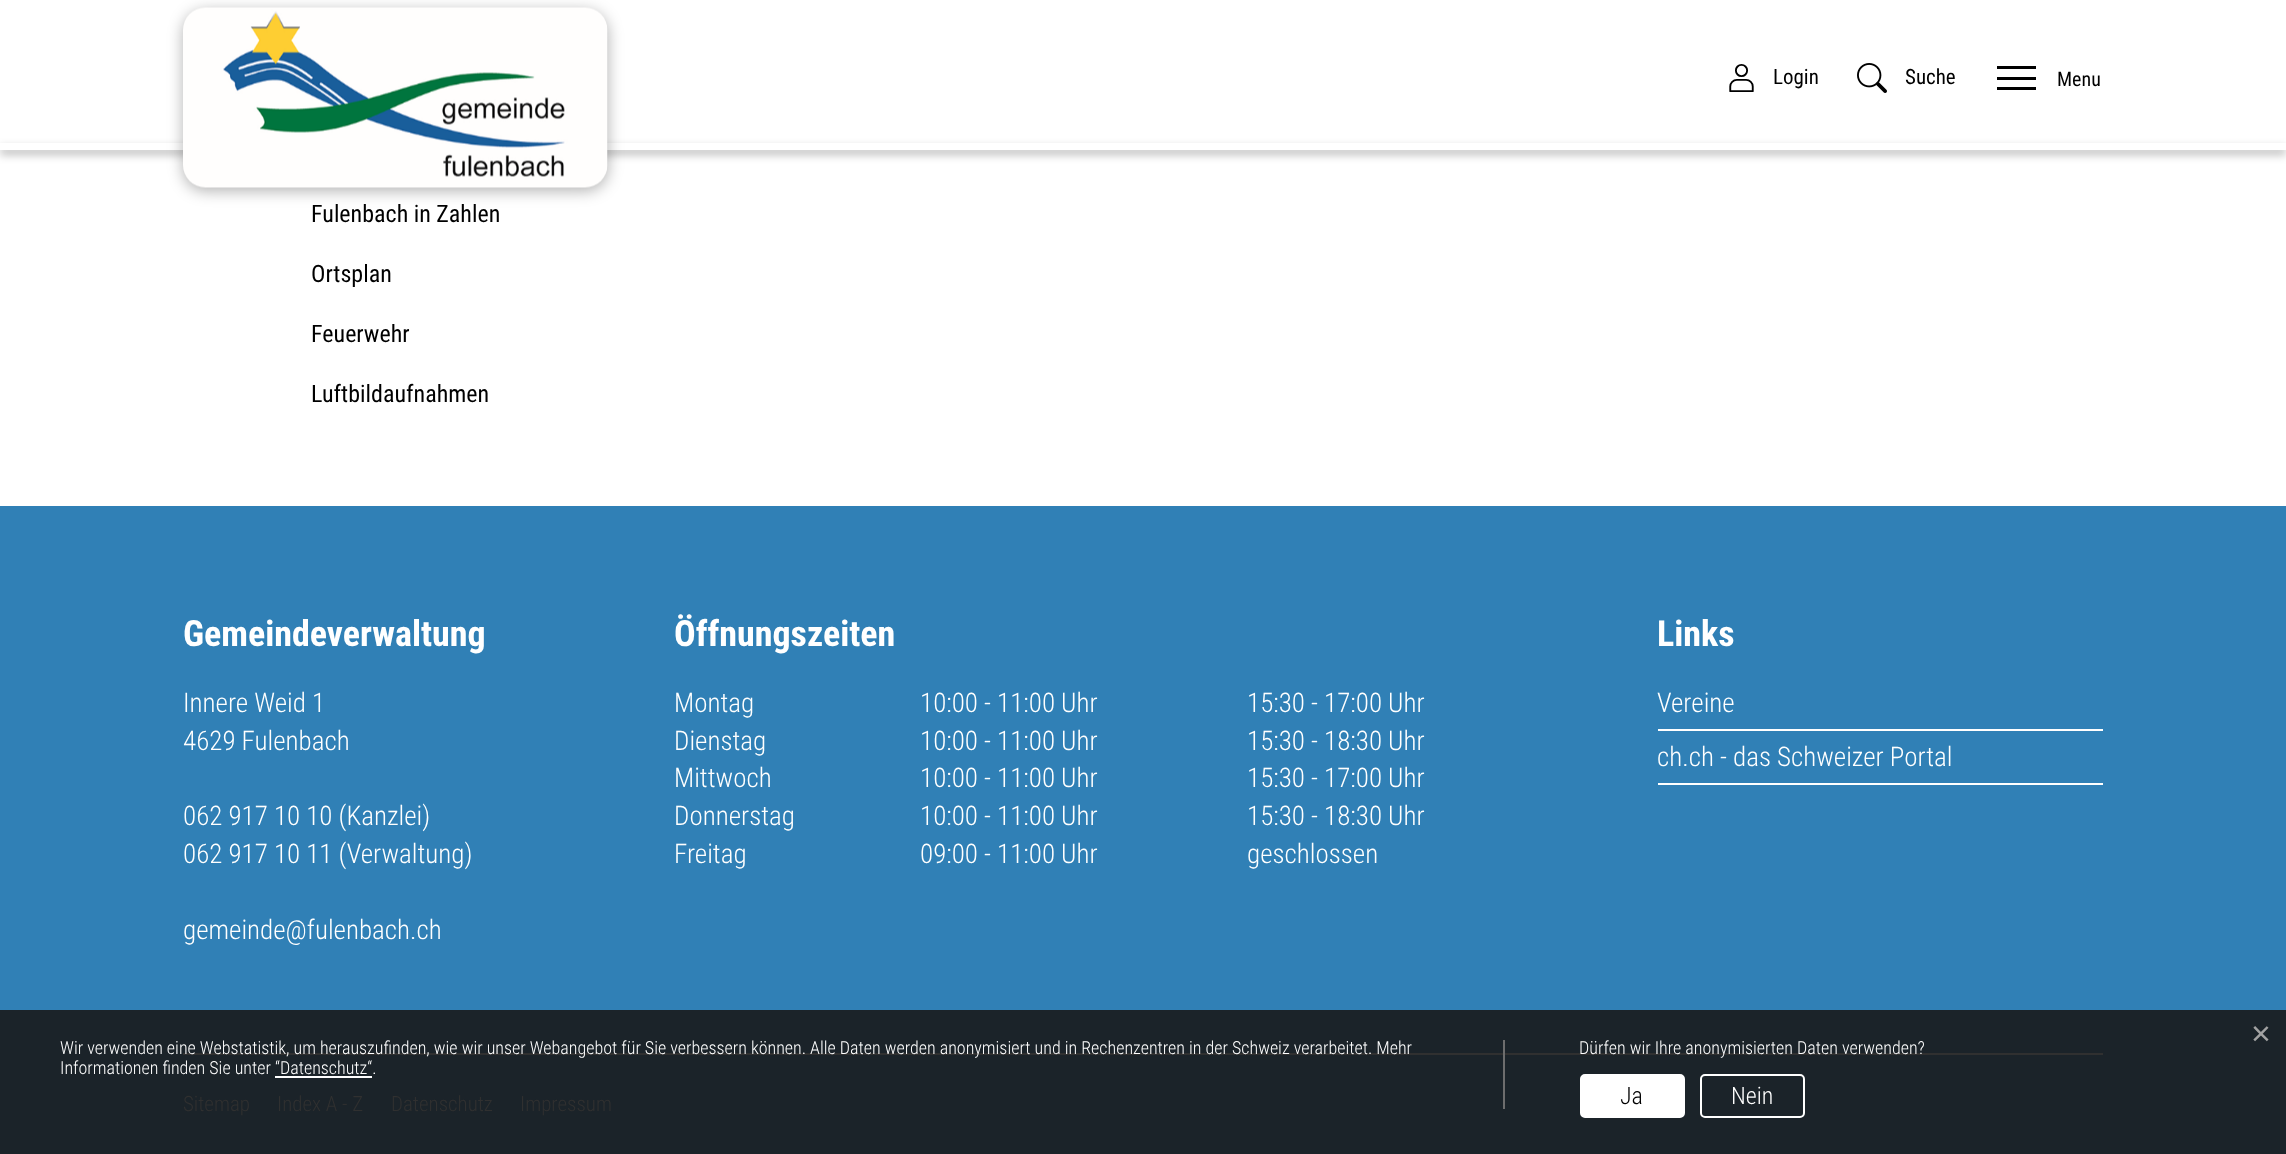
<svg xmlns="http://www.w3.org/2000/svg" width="2286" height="1154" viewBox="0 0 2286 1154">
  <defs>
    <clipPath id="clip1"><path d="M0 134H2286V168H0ZM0 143H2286V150H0Z" clip-rule="evenodd"/></clipPath>
  </defs>
  <rect width="100%" height="100%" fill="#fff"/>
  <rect x="183" y="11" width="425" height="180" rx="23" fill="#0000004d" filter="blur(7.5px)"/>
  <g clip-path="url(#clip1)">
    <path d="M0 147h2286v8H0z" fill="#00000040" filter="blur(4px)"/>
  </g>
  <image x="183" y="7" width="425" height="181" href="img/1.png"/>
  <image x="1729" y="64" width="25" height="28" href="img/2.png"/>
  <image x="1857" y="63" width="30" height="30" href="img/3.png"/>
  <path d="M1997 66h39v3H1997z" fill="#000"/>
  <path d="M1997 77h39v3H1997z" fill="#000"/>
  <path d="M1997 87h39v3H1997z" fill="#000"/>
  <path d="M0 506h2286v504H0z" fill="#3080b6"/>
  <path d="M0 1010h2286v144H0z" fill="#1b2329"/>
  <path d="M1658 729h445v2H1658z" fill="#fff"/>
  <path d="M1658 783h445v2H1658z" fill="#fff"/>
  <path d="M183 1053h1920v2H183z" fill="#303030"/>
  <path d="M1503 1040h2v69H1503z" fill="#6d6d6d"/>
  <path d="M275 1076h97v2H275z" fill="#fff"/>
  <rect x="1581" y="1075" width="103" height="42" rx="4" fill="#fff" stroke="#fff" stroke-width="2"/>
  <rect x="1701" y="1075" width="103" height="42" rx="4" fill="none" stroke="#fff" stroke-width="2"/>
  <g font-family="Roboto Condensed" font-size="21" fill="#000">
    <text x="1773" y="84">Login</text>
    <text x="1905" y="84">Suche</text>
  </g>
  <text x="2057" y="86" font-family="Roboto Condensed" font-size="20" fill="#000">Menu</text>
  <g font-family="Roboto Condensed" font-size="24" fill="#000">
    <text x="311" y="222">Fulenbach in Zahlen</text>
    <text x="311" y="282">Ortsplan</text>
    <text x="311" y="342">Feuerwehr</text>
    <text x="311" y="402">Luftbildaufnahmen</text>
  </g>
  <text x="183" y="646" font-family="Roboto Condensed" font-size="36" font-weight="bold" fill="#fff">Gemeindeverwaltung</text>
  <g font-family="Roboto Condensed" font-size="27" font-weight="300" fill="#fff">
    <text x="183" y="712">Innere Weid 1</text>
    <text x="183" y="750">4629 Fulenbach</text>
    <text x="183" y="825">062 917 10 10 (Kanzlei)</text>
    <text x="183" y="863">062 917 10 11 (Verwaltung)</text>
    <text x="183" y="939">gemeinde@fulenbach.ch</text>
  </g>
  <text x="674" y="646" font-family="Roboto Condensed" font-size="36" font-weight="bold" fill="#fff">Öffnungszeiten</text>
  <g font-family="Roboto Condensed" font-size="27" font-weight="300" fill="#fff">
    <text x="674" y="712">Montag</text>
    <text x="920" y="712">10:00 - 11:00 Uhr</text>
    <text x="1247" y="712">15:30 - 17:00 Uhr</text>
    <text x="674" y="750">Dienstag</text>
    <text x="920" y="750">10:00 - 11:00 Uhr</text>
    <text x="1247" y="750">15:30 - 18:30 Uhr</text>
    <text x="674" y="787">Mittwoch</text>
    <text x="920" y="787">10:00 - 11:00 Uhr</text>
    <text x="1247" y="787">15:30 - 17:00 Uhr</text>
    <text x="674" y="825">Donnerstag</text>
    <text x="920" y="825">10:00 - 11:00 Uhr</text>
    <text x="1247" y="825">15:30 - 18:30 Uhr</text>
    <text x="674" y="863">Freitag</text>
    <text x="920" y="863">09:00 - 11:00 Uhr</text>
    <text x="1247" y="863">geschlossen</text>
  </g>
  <text x="1657" y="646" font-family="Roboto Condensed" font-size="36" font-weight="bold" fill="#fff">Links</text>
  <g font-family="Roboto Condensed" font-size="27" font-weight="300" fill="#fff">
    <text x="1657" y="712">Vereine</text>
    <text x="1657" y="766">ch.ch - das Schweizer Portal</text>
  </g>
  <g font-family="Roboto Condensed" font-size="21" font-weight="300" fill="#303030">
    <text x="183" y="1111">Sitemap</text>
    <text x="277" y="1111">Index A - Z</text>
    <text x="391" y="1111">Datenschutz</text>
    <text x="520" y="1111">Impressum</text>
  </g>
  <text x="2251" y="1045" font-family="Liberation Sans" font-size="34" fill="#a2a2a2">×</text>
  <g font-family="Roboto Condensed" font-size="18" font-weight="300" fill="#fff">
    <text x="60" y="1054">Wir verwenden eine Webstatistik, um herauszufinden, wie wir unser Webangebot für Sie verbessern können. Alle Daten werden anonymisiert und in Rechenzentren in der Schweiz verarbeitet. Mehr</text>
    <text x="60" y="1074">Informationen finden Sie unter “Datenschutz“.</text>
    <text x="1579" y="1054">Dürfen wir Ihre anonymisierten Daten verwenden?</text>
  </g>
  <text x="1620" y="1104" font-family="Roboto Condensed" font-size="24" font-weight="300" fill="#000">Ja</text>
  <text x="1731" y="1104" font-family="Roboto Condensed" font-size="24" font-weight="300" fill="#fff">Nein</text>
</svg>
